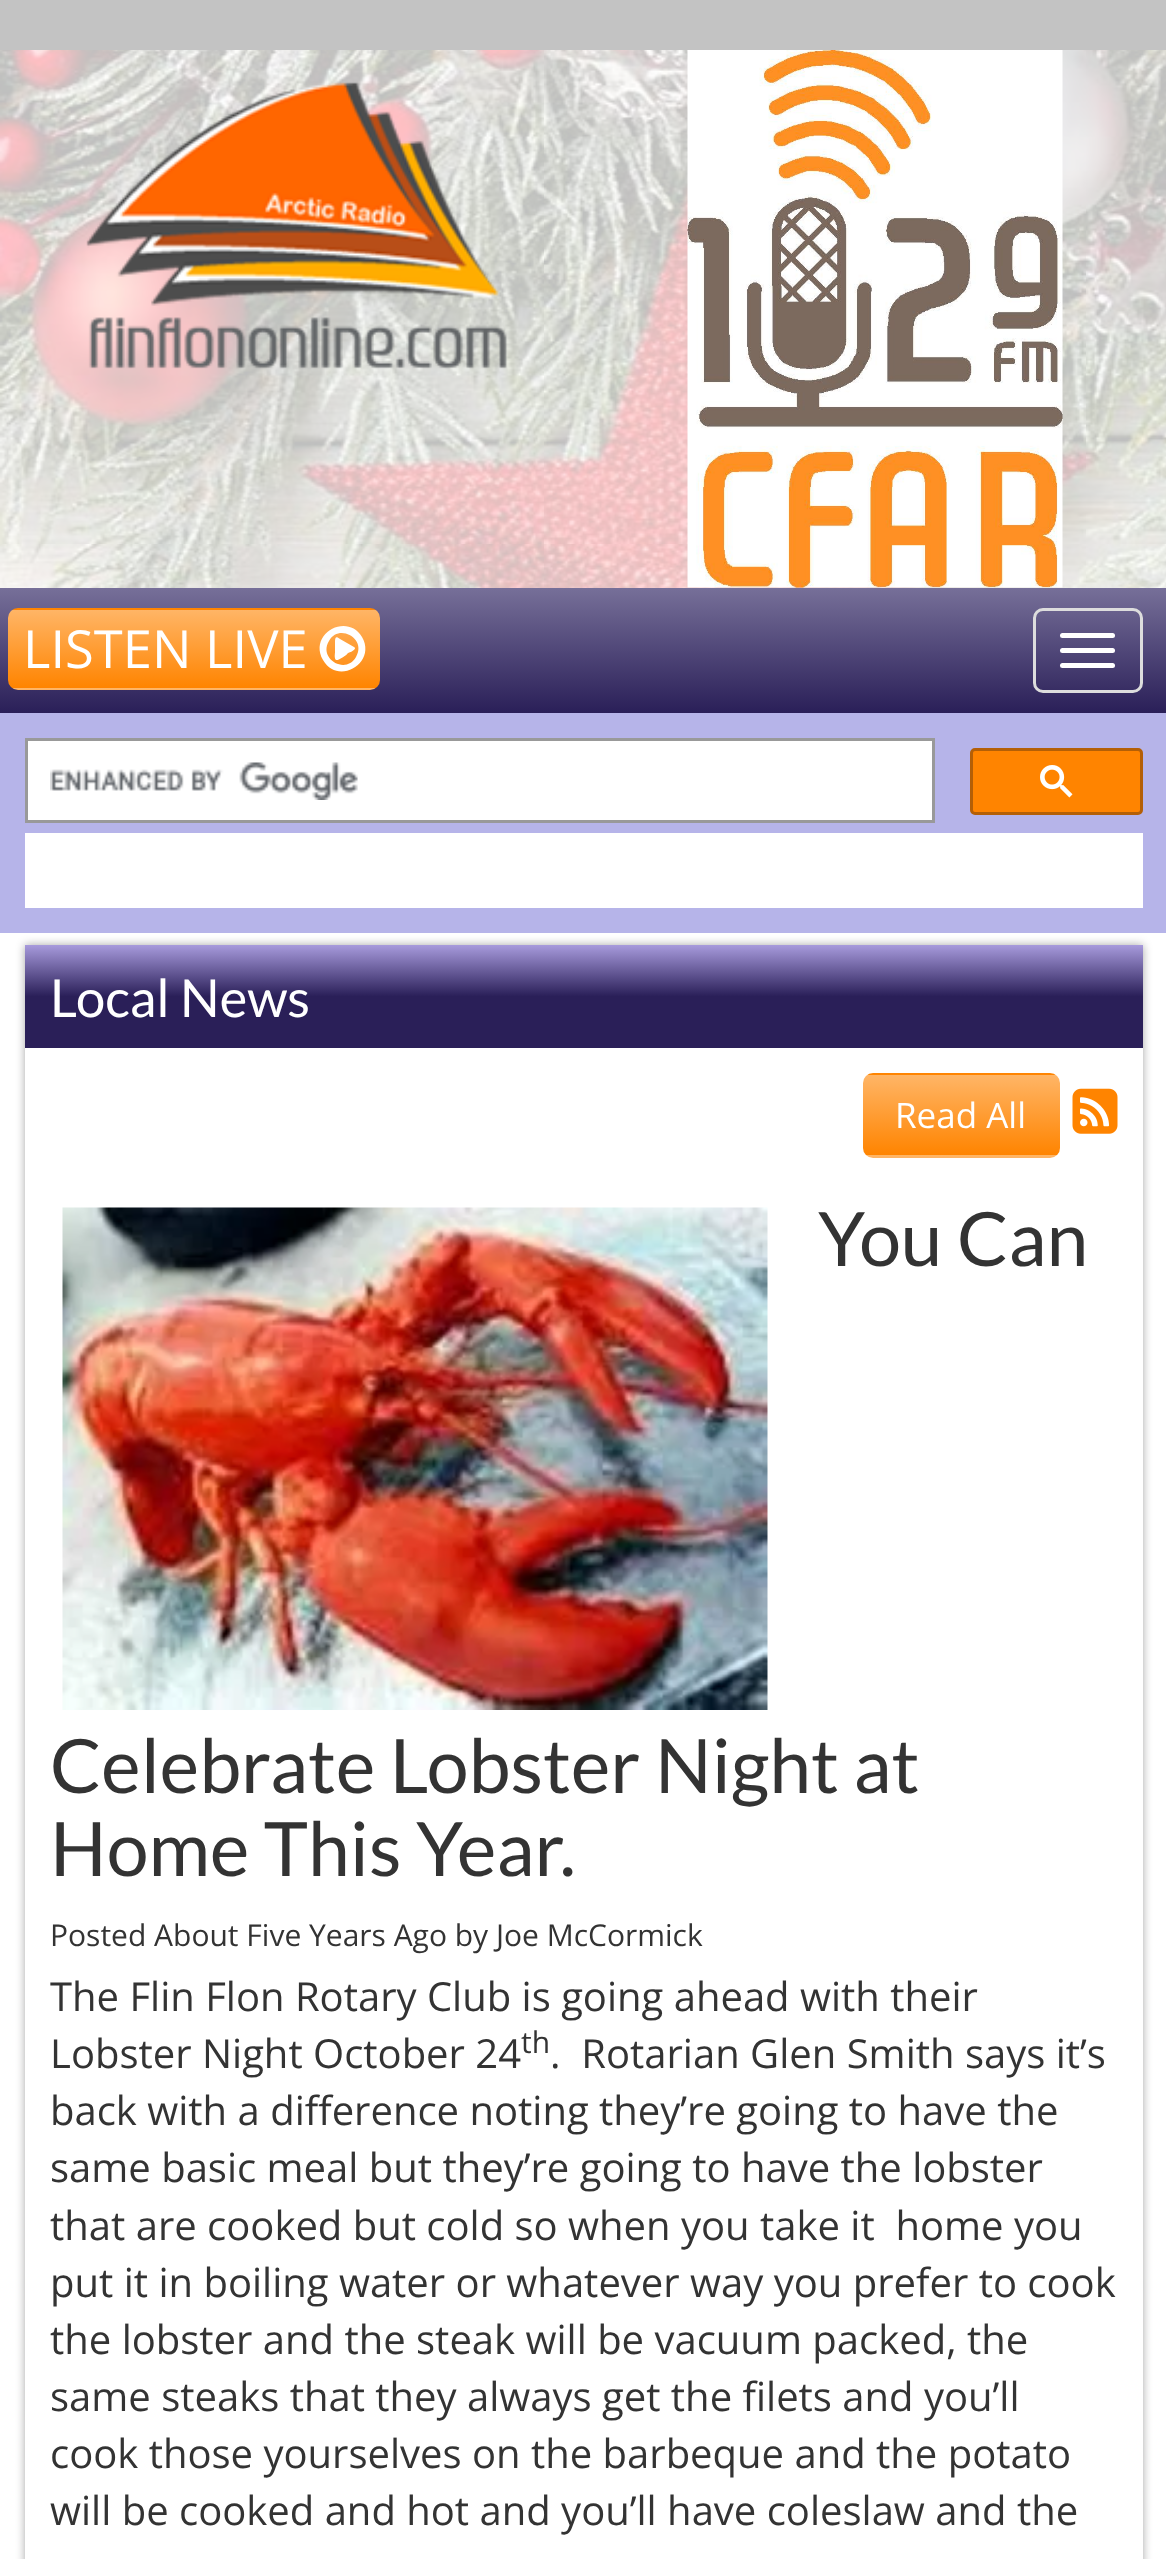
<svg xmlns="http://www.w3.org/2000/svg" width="1166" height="2559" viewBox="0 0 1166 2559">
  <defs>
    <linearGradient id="g1" gradientUnits="userSpaceOnUse" x1="584" y1="587" x2="584" y2="713"><stop offset="0" stop-color="#777099"/><stop offset="1" stop-color="#2a1f58"/></linearGradient>
    <clipPath id="clip1"><rect x="8" y="608" width="372" height="82" rx="10"/></clipPath>
    <linearGradient id="g2" gradientUnits="userSpaceOnUse" x1="194" y1="533" x2="194" y2="610"><stop offset="0" stop-color="#ffb566"/><stop offset="1" stop-color="#ff8400"/></linearGradient>
    <linearGradient id="g3" gradientUnits="userSpaceOnUse" x1="194" y1="610" x2="194" y2="688"><stop offset="0" stop-color="#ffb566"/><stop offset="1" stop-color="#ff8400"/></linearGradient>
    <linearGradient id="g4" gradientUnits="userSpaceOnUse" x1="194" y1="688" x2="194" y2="765"><stop offset="0" stop-color="#ffb566"/><stop offset="1" stop-color="#ff8400"/></linearGradient>
    <linearGradient id="g5" gradientUnits="userSpaceOnUse" x1="584" y1="945" x2="584" y2="1048"><stop offset="0" stop-color="#a79adc"/><stop offset="0.5" stop-color="#2a1f58"/></linearGradient>
    <clipPath id="clip2"><rect x="863" y="1073" width="197" height="85" rx="10"/></clipPath>
    <linearGradient id="g6" gradientUnits="userSpaceOnUse" x1="961" y1="995" x2="961" y2="1075"><stop offset="0" stop-color="#ffb566"/><stop offset="1" stop-color="#ff8400"/></linearGradient>
    <linearGradient id="g7" gradientUnits="userSpaceOnUse" x1="961" y1="1075" x2="961" y2="1155"><stop offset="0" stop-color="#ffb566"/><stop offset="1" stop-color="#ff8400"/></linearGradient>
    <linearGradient id="g8" gradientUnits="userSpaceOnUse" x1="961" y1="1155" x2="961" y2="1235"><stop offset="0" stop-color="#ffb566"/><stop offset="1" stop-color="#ff8400"/></linearGradient>
  </defs>
  <rect width="100%" height="100%" fill="#fff"/>
  <image x="0" y="50" width="1166" height="538" href="img/1.png"/>
  <path d="M0 0h1166v50H0z" fill="#c3c3c3"/>
  <path d="M0 50h1166v538H0z" fill="#ffffffbf"/>
  <image x="86" y="82" width="421" height="287" href="img/2.png"/>
  <image x="687" y="50" width="376" height="538" href="img/3.png"/>
  <path d="M0 588h1166v125H0z" fill="url(#g1)"/>
  <g clip-path="url(#clip1)">
    <path d="M8 608h372v2H8z" fill="url(#g2)"/>
    <path d="M8 610h372v78H8z" fill="url(#g3)"/>
    <path d="M8 688h372v2H8z" fill="url(#g4)"/>
  </g>
  <path d="M354 647C358 649 349 653 348 653C347 655 338 661 336 660C334 658 335 654 335 652V642C335 637 336 636 340 639ZM356 657C367 639 339 623 329 641C318 659 346 675 356 657ZM362 637C377 663 338 686 323 660C308 634 347 612 362 637Z" fill="#fff"/>
  <rect x="1034.5" y="609.5" width="107" height="82" rx="8.5" fill="none" stroke="#ddd" stroke-width="3"/>
  <rect x="1060" y="633" width="55" height="5" rx="2.5" fill="#fff"/>
  <rect x="1060" y="648" width="55" height="5" rx="2.5" fill="#fff"/>
  <rect x="1060" y="663" width="55" height="5" rx="2.5" fill="#fff"/>
  <path d="M0 713h1166v220H0z" fill="#b6b4e9"/>
  <path d="M26.5 739.5h907v82H26.5z" fill="#fff" stroke="#999" stroke-width="3"/>
  <image x="50" y="762" width="308" height="38" href="img/4.png"/>
  <rect x="971.5" y="749.5" width="170" height="64" rx="3.5" fill="#ff8400" stroke="#b45f06" stroke-width="3"/>
  <image x="1040" y="765" width="33" height="33" href="img/5.png"/>
  <path d="M25 833h1118v75H25z" fill="#fff"/>
  <path d="M25 945h1118v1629H25z" fill="#00000059" filter="blur(5px)"/>
  <path d="M25 945h1118v103H25z" fill="url(#g5)"/>
  <path d="M25 1048h1118v1511H25z" fill="#fff"/>
  <g clip-path="url(#clip2)">
    <path d="M863 1073h197v2H863z" fill="url(#g6)"/>
    <path d="M863 1075h197v80H863z" fill="url(#g7)"/>
    <path d="M863 1155h197v3H863z" fill="url(#g8)"/>
  </g>
  <image x="1072" y="1088" width="46" height="46" href="img/6.png"/>
  <image x="62" y="1207" width="706" height="503" href="img/7.png"/>
  <text x="23" y="668" font-family="Open Sans" font-size="52.5" fill="#fff">LISTEN LIVE</text>
  <text x="50" y="1017" font-family="Lato" font-size="52.5" fill="#fff">Local News</text>
  <text x="895" y="1128" font-family="Open Sans" font-size="35" fill="#fff">Read All</text>
  <g font-family="Lato" font-size="75" fill="#333">
    <text x="818" y="1266">You Can</text>
    <text x="50" y="1793">Celebrate Lobster Night at</text>
    <text x="50" y="1876">Home This Year.</text>
  </g>
  <text x="50" y="1946" font-family="Open Sans" font-size="30" fill="#333">Posted About Five Years Ago by Joe McCormick</text>
  <g font-family="Open Sans" font-size="40" fill="#333">
    <text x="50" y="2011">The Flin Flon Rotary Club is going ahead with their</text>
    <text x="50" y="2068">Lobster Night October 24</text>
  </g>
  <text x="521" y="2053" font-family="Open Sans" font-size="30" fill="#333">th</text>
  <g font-family="Open Sans" font-size="40" fill="#333">
    <text x="550" y="2068" xml:space="preserve">.  Rotarian Glen Smith says it’s</text>
    <text x="50" y="2125">back with a difference noting they’re going to have the</text>
    <text x="50" y="2182">same basic meal but they’re going to have the lobster</text>
    <text x="50" y="2240" xml:space="preserve">that are cooked but cold so when you take it  home you</text>
    <text x="50" y="2297">put it in boiling water or whatever way you prefer to cook</text>
    <text x="50" y="2354">the lobster and the steak will be vacuum packed, the</text>
    <text x="50" y="2411">same steaks that they always get the filets and you’ll</text>
    <text x="50" y="2468">cook those yourselves on the barbeque and the potato</text>
    <text x="50" y="2525">will be cooked and hot and you’ll have coleslaw and the</text>
  </g>
</svg>
